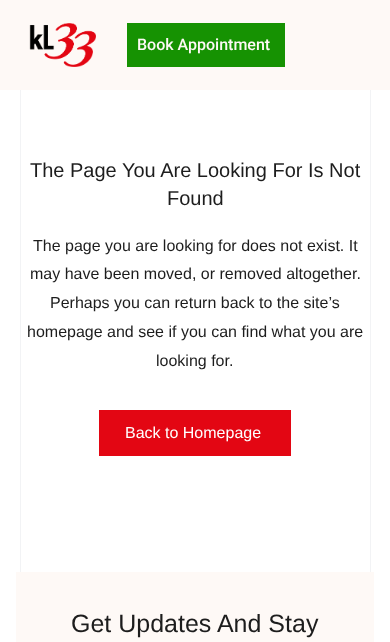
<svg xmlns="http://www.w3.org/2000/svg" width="390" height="642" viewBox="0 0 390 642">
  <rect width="100%" height="100%" fill="#fff"/>
  <path d="M0 0h390v90H0z" fill="#fef9f6"/>
  <image x="29" y="23" width="67" height="44" href="img/1.png"/>
  <path d="M127 23h158v44H127z" fill="#169202"/>
  <path d="M370 90h1v482H370z" fill="#f2f3f5"/>
  <path d="M20 90h1v482H20z" fill="#f2f3f5"/>
  <path d="M99 410h192v46H99z" fill="#e30613"/>
  <path d="M16 572h358v70H16z" fill="#fef9f6"/>
  <text x="137" y="50" font-family="Roboto" font-size="16" font-weight="500" fill="#fef9f6">Book Appointment</text>
  <g font-family="Liberation Sans" font-size="20" fill="#1d1d1d">
    <text x="30" y="177">The Page You Are Looking For Is Not</text>
    <text x="167" y="205">Found</text>
  </g>
  <g font-family="Liberation Sans" font-size="16" fill="#1d1d1d">
    <text x="33" y="251">The page you are looking for does not exist. It</text>
    <text x="30" y="279">may have been moved, or removed altogether.</text>
    <text x="50" y="308">Perhaps you can return back to the site’s</text>
    <text x="27" y="337">homepage and see if you can find what you are</text>
    <text x="156" y="366">looking for.</text>
  </g>
  <text x="125" y="438" font-family="Liberation Sans" font-size="16" fill="#fff">Back to Homepage</text>
  <text x="71" y="632" font-family="Liberation Sans" font-size="25" fill="#1d1d1d">Get Updates And Stay</text>
</svg>
